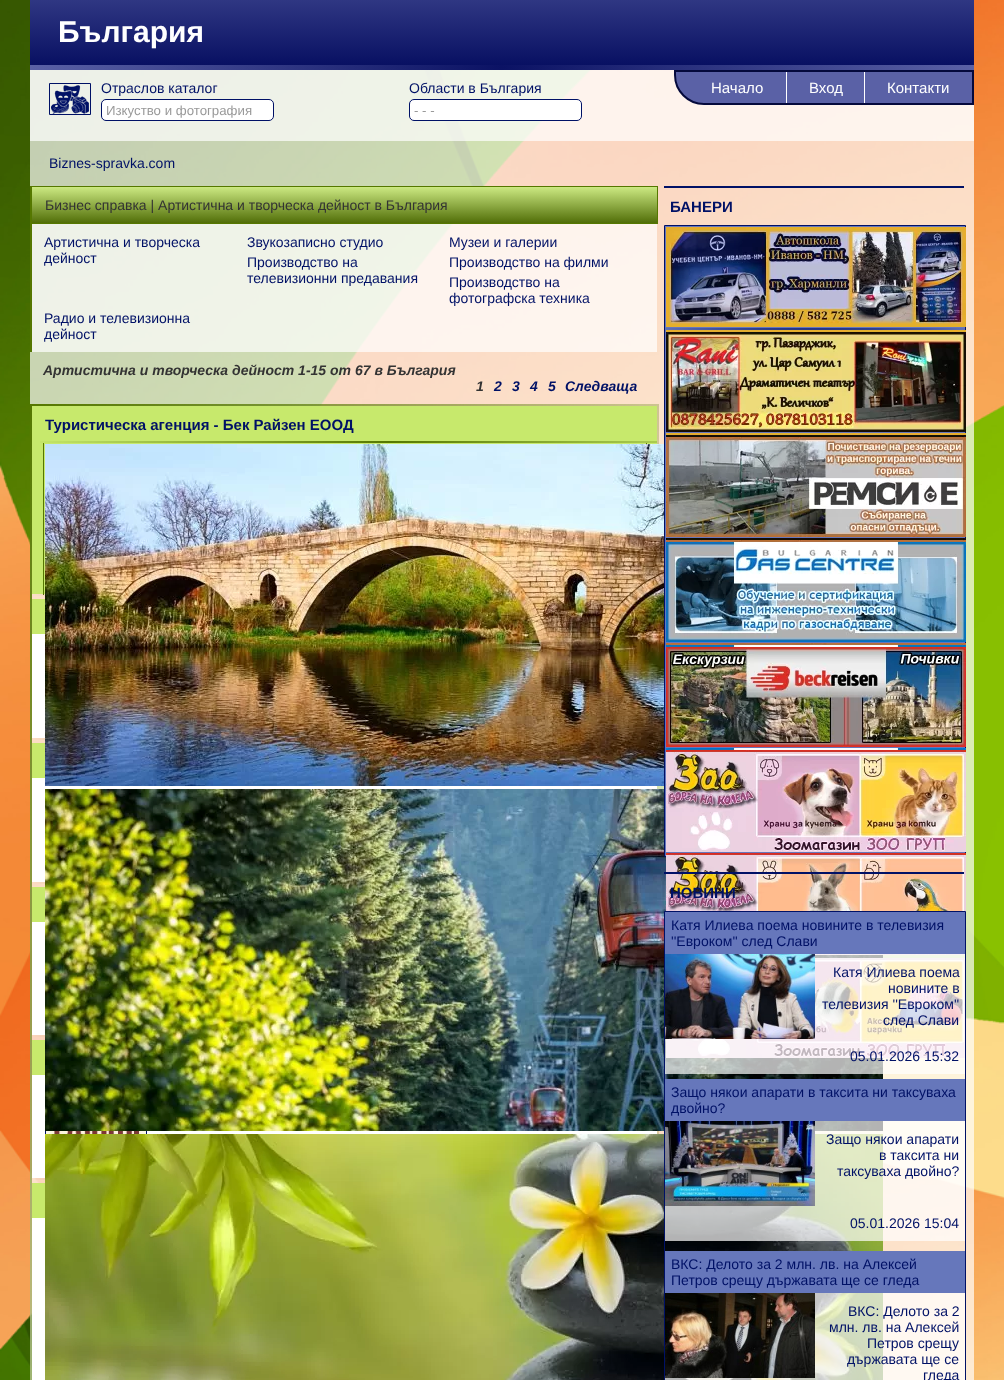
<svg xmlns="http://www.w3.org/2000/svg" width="1004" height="1380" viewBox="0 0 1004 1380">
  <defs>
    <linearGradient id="g1" gradientUnits="userSpaceOnUse" x1="974" y1="0.5" x2="30" y2="0.5"><stop offset="0" stop-color="#5a61a6"/><stop offset="0.5" stop-color="#0b1264"/><stop offset="1" stop-color="#5a61a6"/></linearGradient>
    <linearGradient id="g2" gradientUnits="userSpaceOnUse" x1="502" y1="65" x2="502" y2="-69"><stop offset="0" stop-color="#081062"/><stop offset="1" stop-color="#5960a5"/></linearGradient>
    <linearGradient id="g3" gradientUnits="userSpaceOnUse" x1="345" y1="223" x2="345" y2="187"><stop offset="0" stop-color="#516e08"/><stop offset="1" stop-color="#cce982"/></linearGradient>
    <linearGradient id="g4" gradientUnits="userSpaceOnUse" x1="657" y1="595" x2="32" y2="595"><stop offset="0" stop-color="#570" stop-opacity="0"/><stop offset="0.5" stop-color="#570"/><stop offset="1" stop-color="#570" stop-opacity="0"/></linearGradient>
  </defs>
  <rect width="100%" height="100%" fill="#fff"/>
  <image x="0" y="0" width="1004" height="1380" href="img/1.png"/>
  <path d="M30 65h944v5H30z" fill="url(#g1)"/>
  <path d="M30 0h944v65H30z" fill="url(#g2)"/>
  <path d="M30 70h944v71H30z" fill="#ffffffb3"/>
  <image x="51" y="85" width="38" height="29" href="img/2.png"/>
  <path d="M49.5 83.5h41v31H49.5z" fill="none" stroke="#016"/>
  <rect x="101.5" y="99.5" width="172" height="21" rx="4.5" fill="#fff" stroke="#016"/>
  <rect x="409.5" y="99.5" width="172" height="21" rx="4.5" fill="#fff" stroke="#016"/>
  <path d="M675 71H973V104H704C688 104 675 91 675 75Z" fill="#5a61a6" stroke="#04093c" stroke-width="2"/>
  <path d="M786 72h1v31H786z" fill="#fff"/>
  <path d="M864 72h1v31H864z" fill="#fff"/>
  <path d="M32 224h625v128H32z" fill="#ffffffb3"/>
  <path d="M30 186h2v166H30z" fill="#570"/>
  <path d="M32 187h625v36H32z" fill="url(#g3)"/>
  <path d="M32 186h626v1H32z" fill="#570"/>
  <path d="M657 186h1v38H657z" fill="#570"/>
  <path d="M32 223h626v1H32z" fill="#570"/>
  <image x="30" y="404" width="629" height="976" href="img/3.png"/>
  <path d="M32 406h625v188H32z" fill="#c7e96c"/>
  <image x="40" y="441" width="617" height="2" href="img/4.png"/>
  <path d="M646 443h1v1H646z" fill="#570"/>
  <path d="M43 443h1v152H43z" fill="#570"/>
  <path d="M32 778h625v104H32z" fill="#fff"/>
  <image x="45" y="444" width="619" height="342" href="img/5.png"/>
  <path d="M32 1075h625v103H32z" fill="#fff"/>
  <path d="M45.5 1095.5h101v62H45.5z" fill="none" stroke="#016"/>
  <image x="45" y="789" width="838" height="342" href="img/6.png"/>
  <image x="45" y="1134" width="838" height="246" href="img/7.png"/>
  <path d="M32 594h13v2H32z" fill="url(#g4)"/>
  <path d="M32 634h13v104H32z" fill="#fff"/>
  <path d="M32 599h13v35H32z" fill="#c7e96c"/>
  <path d="M32 743h13v35H32z" fill="#c7e96c"/>
  <path d="M32 922h13v113H32z" fill="#fff"/>
  <path d="M32 887h13v35H32z" fill="#c7e96c"/>
  <path d="M32 1040h13v35H32z" fill="#c7e96c"/>
  <image x="46" y="1131" width="100" height="3" href="img/8.png"/>
  <path d="M32 1218h13v162H32z" fill="#fff"/>
  <path d="M32 1183h13v35H32z" fill="#c7e96c"/>
  <path d="M664 186h300v2H664z" fill="#016"/>
  <path d="M665 226h300v627H665z" fill="#67b"/>
  <path d="M664.5 225.5h301v631H664.5z" fill="none" stroke="#016"/>
  <image x="665" y="328" width="300" height="3" href="img/9.png"/>
  <image x="666" y="227" width="300" height="100" href="img/10.png"/>
  <image x="666" y="330" width="300" height="2" href="img/11.png"/>
  <image x="666" y="433" width="300" height="2" href="img/12.png"/>
  <image x="665" y="433" width="1" height="3" href="img/13.png"/>
  <image x="666" y="332" width="300" height="100" href="img/14.png"/>
  <image x="666" y="435" width="300" height="2" href="img/15.png"/>
  <image x="666" y="538" width="300" height="2" href="img/16.png"/>
  <image x="665" y="538" width="1" height="3" href="img/17.png"/>
  <image x="666" y="437" width="300" height="100" href="img/18.png"/>
  <image x="666" y="540" width="300" height="2" href="img/19.png"/>
  <image x="666" y="643" width="300" height="2" href="img/20.png"/>
  <image x="665" y="643" width="1" height="3" href="img/21.png"/>
  <image x="666" y="542" width="300" height="100" href="img/22.png"/>
  <image x="666" y="645" width="300" height="2" href="img/23.png"/>
  <image x="666" y="748" width="300" height="2" href="img/24.png"/>
  <image x="665" y="748" width="1" height="3" href="img/25.png"/>
  <image x="666" y="647" width="300" height="100" href="img/26.png"/>
  <image x="666" y="750" width="300" height="2" href="img/27.png"/>
  <image x="666" y="853" width="300" height="2" href="img/28.png"/>
  <image x="665" y="853" width="1" height="3" href="img/21.png"/>
  <image x="666" y="752" width="300" height="100" href="img/29.png"/>
  <image x="666" y="855" width="300" height="100" href="img/30.png"/>
  <image x="666" y="958" width="299" height="100" href="img/31.png"/>
  <path d="M664 872h300v2H664z" fill="#016"/>
  <path d="M664.5 911.5h301v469H664.5z" fill="none" stroke="#016"/>
  <path d="M665 912h300v42H665z" fill="#67b"/>
  <path d="M665 1039h150v35H665z" fill="#ffffffb3"/>
  <image x="665" y="954" width="150" height="85" href="img/32.png"/>
  <path d="M815 954h150v120H815z" fill="#ffffffb3"/>
  <path d="M665 1079h300v42H665z" fill="#67b"/>
  <path d="M665 1206h150v35H665z" fill="#ffffffb3"/>
  <image x="665" y="1121" width="150" height="85" href="img/33.png"/>
  <path d="M815 1121h150v120H815z" fill="#ffffffb3"/>
  <path d="M665 1251h300v42H665z" fill="#67b"/>
  <path d="M665 1378h150v2H665z" fill="#ffffffb3"/>
  <image x="665" y="1293" width="150" height="85" href="img/34.png"/>
  <path d="M815 1293h150v87H815z" fill="#ffffffb3"/>
  <text x="58" y="42" font-family="Liberation Sans" font-size="30" font-weight="bold" fill="#fff">България</text>
  <text x="101" y="93" font-family="Liberation Sans" font-size="14" fill="#016">Отраслов каталог</text>
  <text x="106" y="115" font-family="Liberation Sans" font-size="13.25" fill="#999">Изкуство и фотография</text>
  <text x="409" y="93" font-family="Liberation Sans" font-size="14" fill="#016">Области в България</text>
  <text x="414" y="115" font-family="Liberation Sans" font-size="13.25" fill="#999">- - -</text>
  <g font-family="Liberation Sans" font-size="15" fill="#fff">
    <text x="711" y="93">Начало</text>
    <text x="809" y="93">Вход</text>
    <text x="887" y="93">Контакти</text>
  </g>
  <text x="49" y="168" font-family="Liberation Sans" font-size="14" fill="#016">Biznes-spravka.com</text>
  <text x="45" y="210" font-family="Liberation Sans" font-size="14" fill="#333">Бизнес справка | Артистична и творческа дейност в България</text>
  <g font-family="Liberation Sans" font-size="14" fill="#016">
    <text x="44" y="247">Артистична и творческа</text>
    <text x="44" y="263">дейност</text>
    <text x="247" y="247">Звукозаписно студио</text>
    <text x="449" y="247">Музеи и галерии</text>
    <text x="247" y="267">Производство на</text>
    <text x="247" y="283">телевизионни предавания</text>
    <text x="449" y="267">Производство на филми</text>
    <text x="449" y="287">Производство на</text>
    <text x="449" y="303">фотографска техника</text>
    <text x="44" y="323">Радио и телевизионна</text>
    <text x="44" y="339">дейност</text>
  </g>
  <g font-family="Liberation Sans" font-size="14" font-weight="bold" font-style="italic" fill="#333">
    <text x="43" y="375">Артистична и творческа дейност 1-15 от 67 в България</text>
    <text x="476" y="391">1</text>
  </g>
  <g font-family="Liberation Sans" font-size="14" font-weight="bold" font-style="italic" fill="#016">
    <text x="494" y="391">2</text>
    <text x="512" y="391">3</text>
    <text x="530" y="391">4</text>
    <text x="548" y="391">5</text>
    <text x="565" y="391">Следваща</text>
  </g>
  <g font-family="Liberation Sans" font-size="15" font-weight="bold" fill="#016">
    <text x="45" y="430">Туристическа агенция - Бек Райзен ЕООД</text>
    <text x="670" y="212">БАНЕРИ</text>
    <text x="670" y="898">НОВИНИ</text>
  </g>
  <g font-family="Liberation Sans" font-size="14" fill="#016">
    <text x="671" y="930">Катя Илиева поема новините в телевизия</text>
    <text x="671" y="946">''Евроком'' след Слави</text>
    <text x="833" y="977">Катя Илиева поема</text>
    <text x="888" y="993">новините в</text>
    <text x="822" y="1009">телевизия ''Евроком''</text>
    <text x="883" y="1025">след Слави</text>
    <text x="850" y="1061">05.01.2026 15:32</text>
    <text x="671" y="1097">Защо някои апарати в таксита ни таксуваха</text>
    <text x="671" y="1113">двойно?</text>
    <text x="826" y="1144">Защо някои апарати</text>
    <text x="879" y="1160">в таксита ни</text>
    <text x="837" y="1176">таксуваха двойно?</text>
    <text x="850" y="1228">05.01.2026 15:04</text>
    <text x="671" y="1269">ВКС: Делото за 2 млн. лв. на Алексей</text>
    <text x="671" y="1285">Петров срещу държавата ще се гледа</text>
    <text x="848" y="1316">ВКС: Делото за 2</text>
    <text x="829" y="1332">млн. лв. на Алексей</text>
    <text x="867" y="1348">Петров срещу</text>
    <text x="847" y="1364">държавата ще се</text>
    <text x="923" y="1380">гледа</text>
  </g>
</svg>
